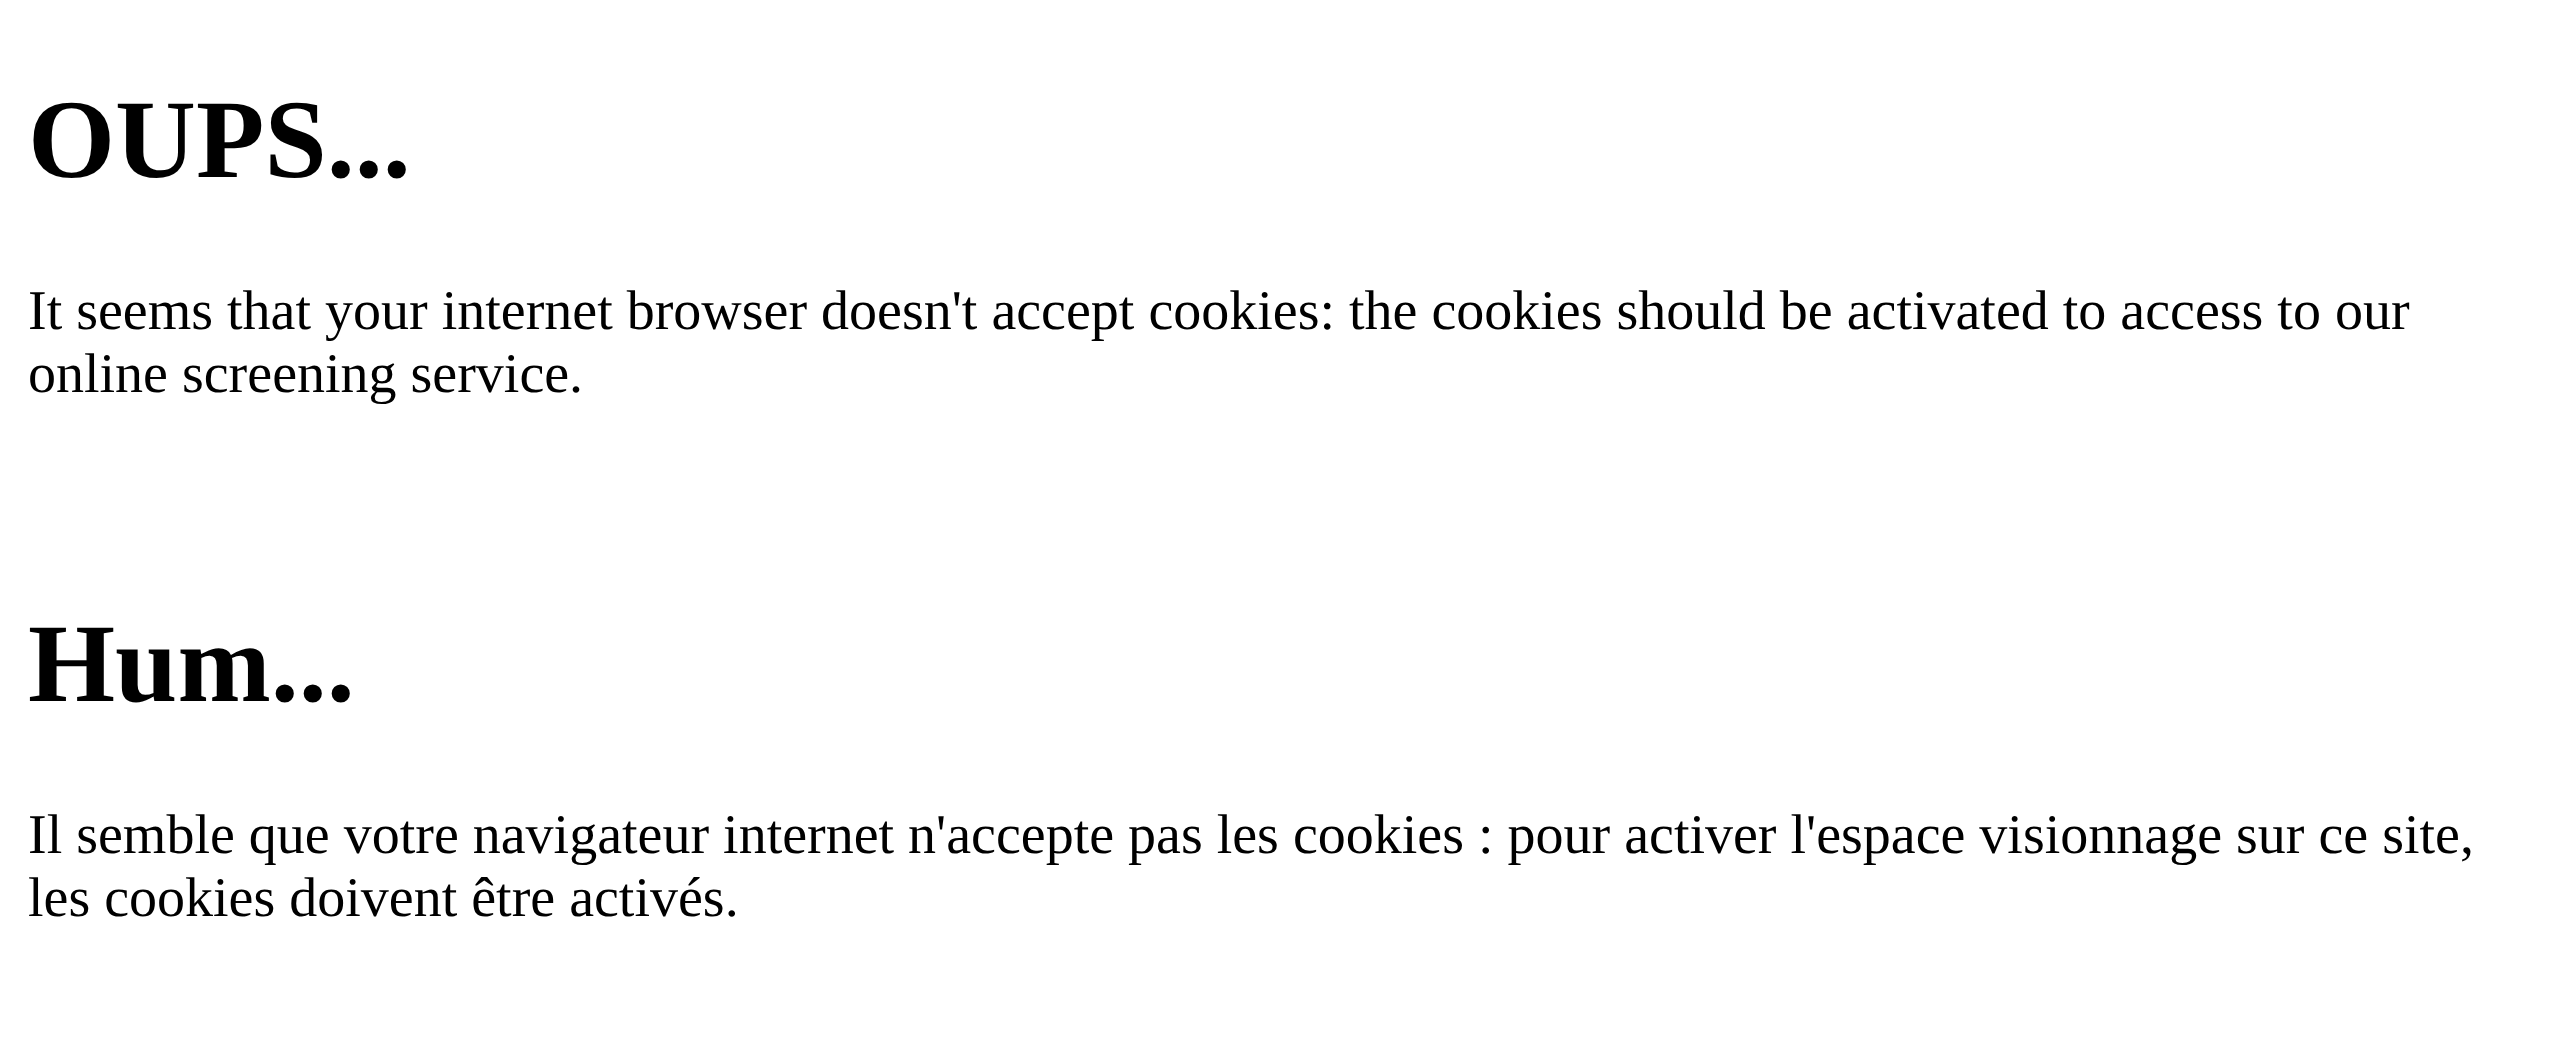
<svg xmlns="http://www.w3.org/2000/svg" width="2551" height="1043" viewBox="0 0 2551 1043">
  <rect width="100%" height="100%" fill="#fff"/>
  <text x="28" y="177" font-family="Liberation Serif" font-size="112" font-weight="bold" fill="#000">OUPS...</text>
  <g font-family="Liberation Serif" font-size="56" fill="#000">
    <text x="28" y="329">It seems that your internet browser doesn't accept cookies: the cookies should be activated to access to our</text>
    <text x="28" y="392">online screening service.</text>
  </g>
  <text x="28" y="701" font-family="Liberation Serif" font-size="112" font-weight="bold" fill="#000">Hum...</text>
  <g font-family="Liberation Serif" font-size="56" fill="#000">
    <text x="28" y="853">Il semble que votre navigateur internet n'accepte pas les cookies : pour activer l'espace visionnage sur ce site,</text>
    <text x="28" y="916">les cookies doivent être activés.</text>
  </g>
</svg>
